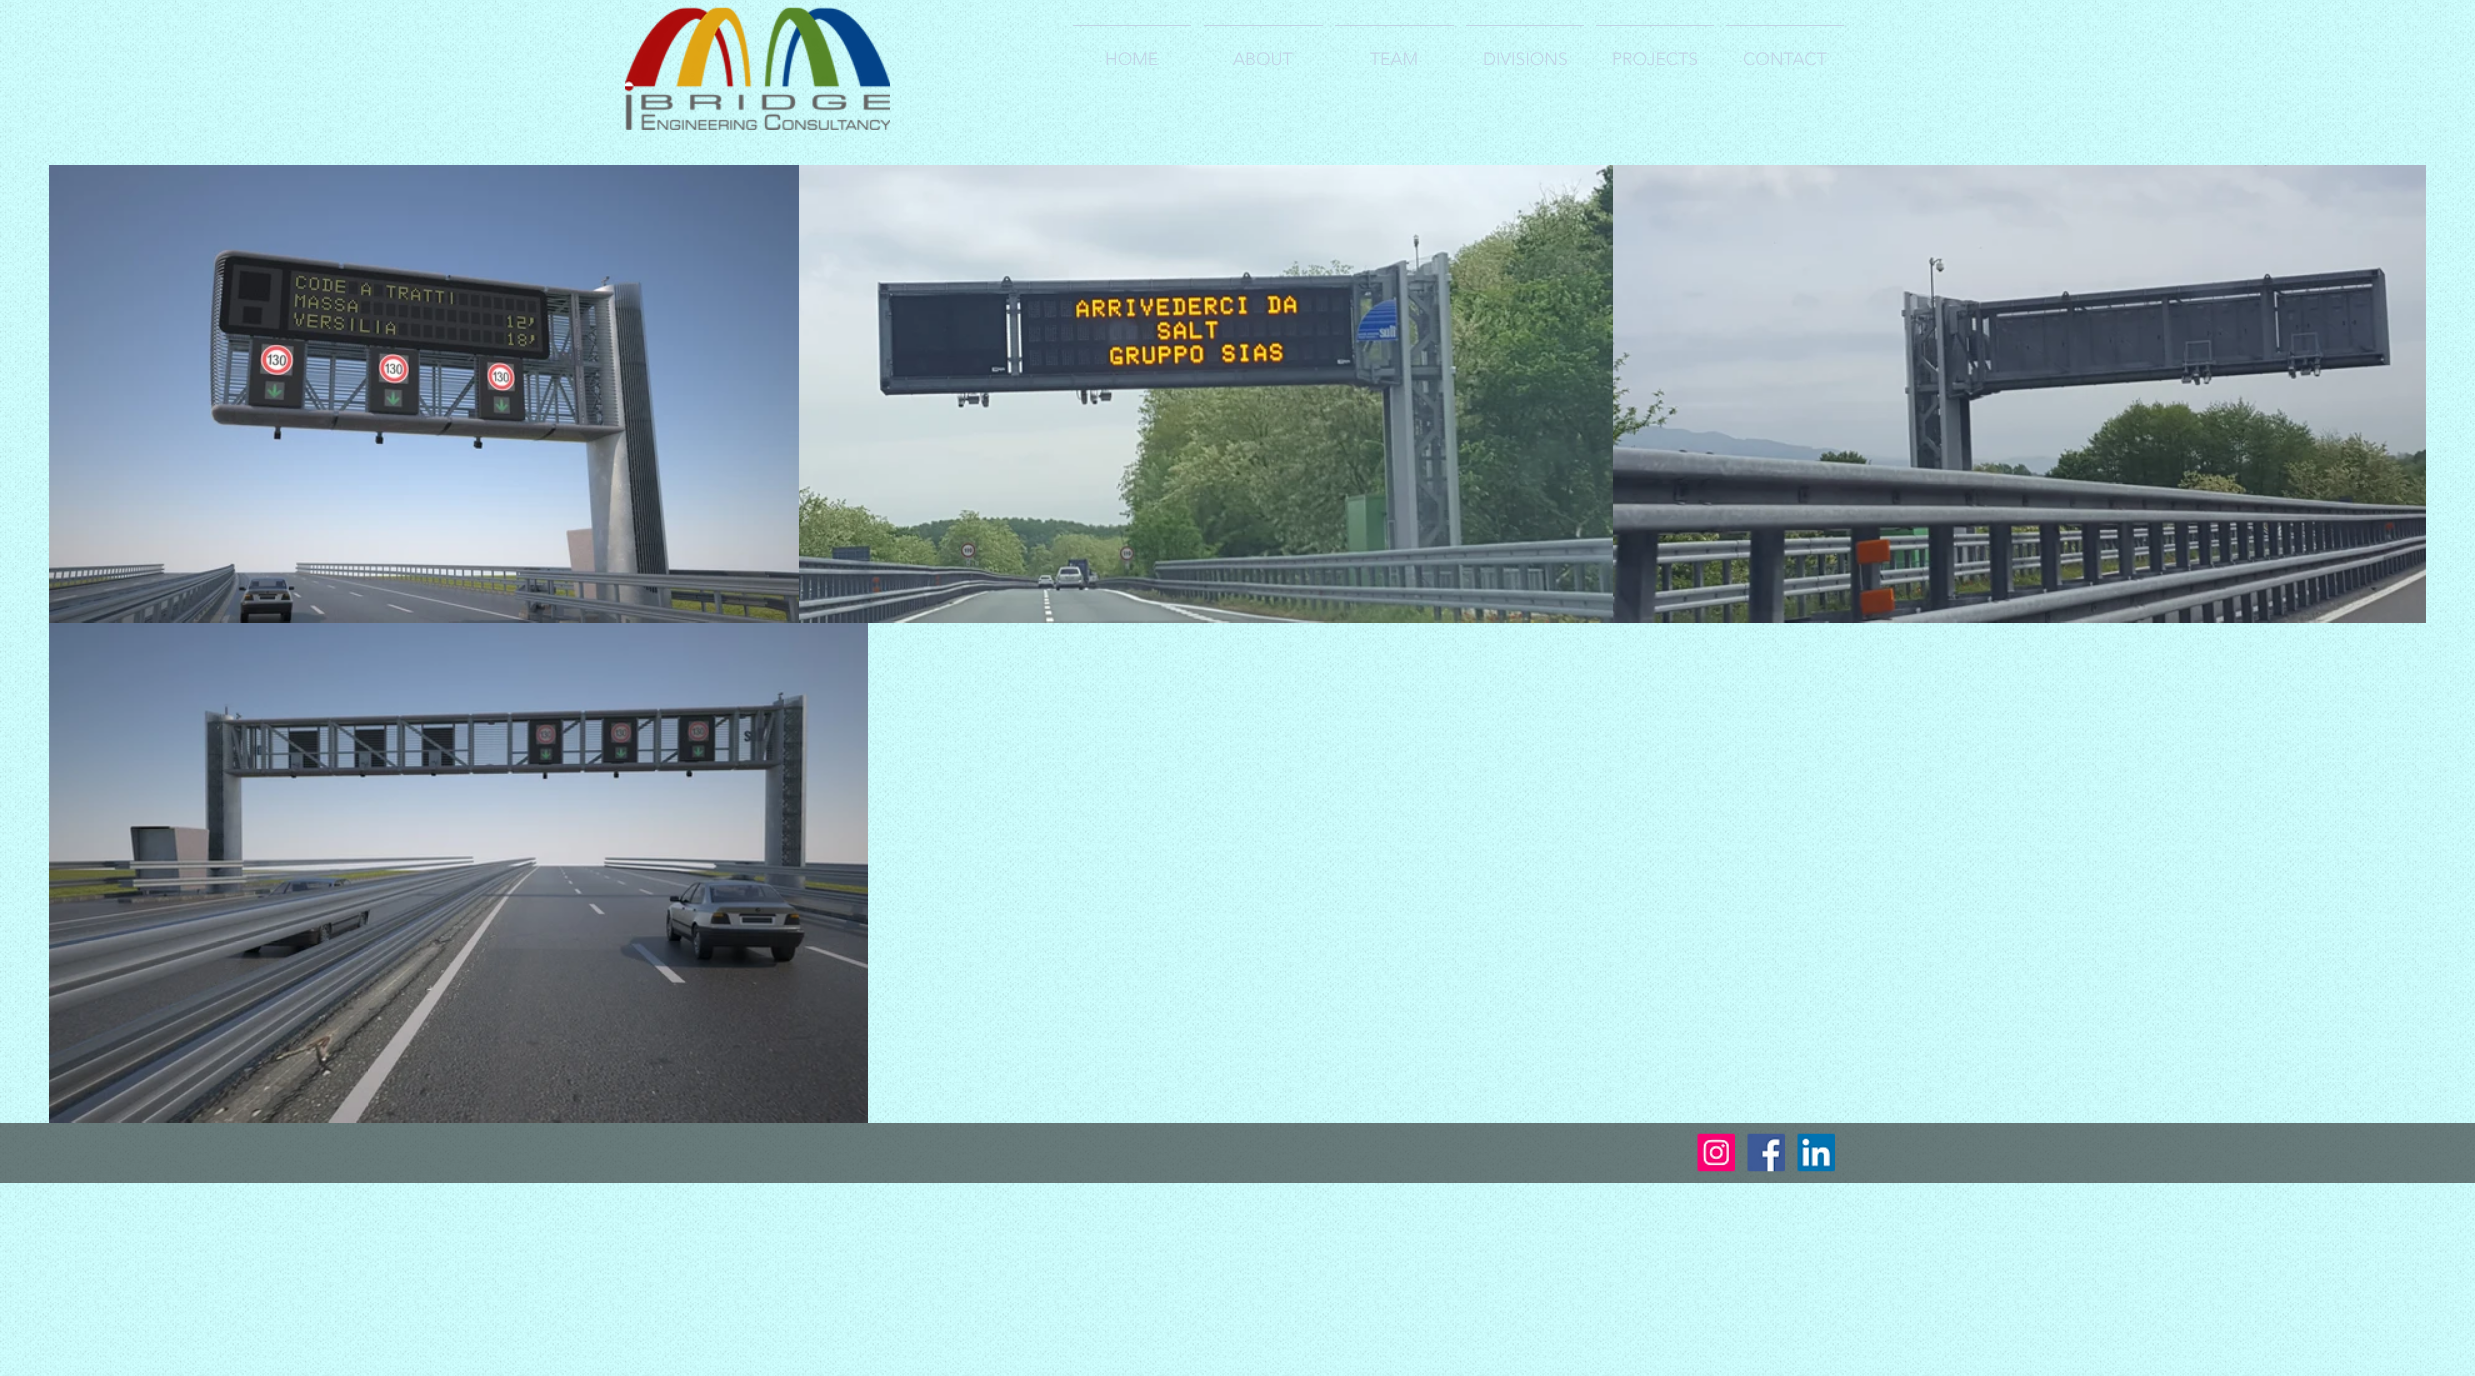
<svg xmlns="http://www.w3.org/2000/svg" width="2475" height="1376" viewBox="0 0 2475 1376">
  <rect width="100%" height="100%" fill="#cfffff"/>
  <image x="0" y="0" width="2475" height="1376" href="img/1.png"/>
  <image x="625" y="7" width="265" height="123" href="img/2.png"/>
  <path d="M1073 25h118v1H1073z" fill="#c0d2e5"/>
  <path d="M1204 25h119v1H1204z" fill="#c0d2e5"/>
  <path d="M1335 25h119v1H1335z" fill="#c0d2e5"/>
  <path d="M1466 25h118v1H1466z" fill="#c0d2e5"/>
  <path d="M1596 25h118v1H1596z" fill="#c0d2e5"/>
  <path d="M1726 25h118v1H1726z" fill="#c0d2e5"/>
  <image x="49" y="165" width="750" height="458" href="img/3.png"/>
  <image x="799" y="165" width="814" height="458" href="img/4.png"/>
  <image x="1613" y="165" width="813" height="458" href="img/5.png"/>
  <image x="49" y="623" width="819" height="500" href="img/6.png"/>
  <path d="M0 1123h2475v60H0z" fill="#23232399"/>
  <image x="1697" y="1133" width="38" height="39" href="img/7.png"/>
  <image x="1747" y="1133" width="38" height="39" href="img/8.png"/>
  <image x="1797" y="1133" width="38" height="39" href="img/9.png"/>
  <g font-family="'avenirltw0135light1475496'" font-size="17.5" font-weight="300" fill="#c0d2e5">
    <text x="1105" y="65">HOME</text>
    <text x="1233" y="65">ABOUT</text>
    <text x="1370" y="65">TEAM</text>
    <text x="1483" y="65">DIVISIONS</text>
    <text x="1612" y="65">PROJECTS</text>
    <text x="1743" y="65">CONTACT</text>
  </g>
</svg>
